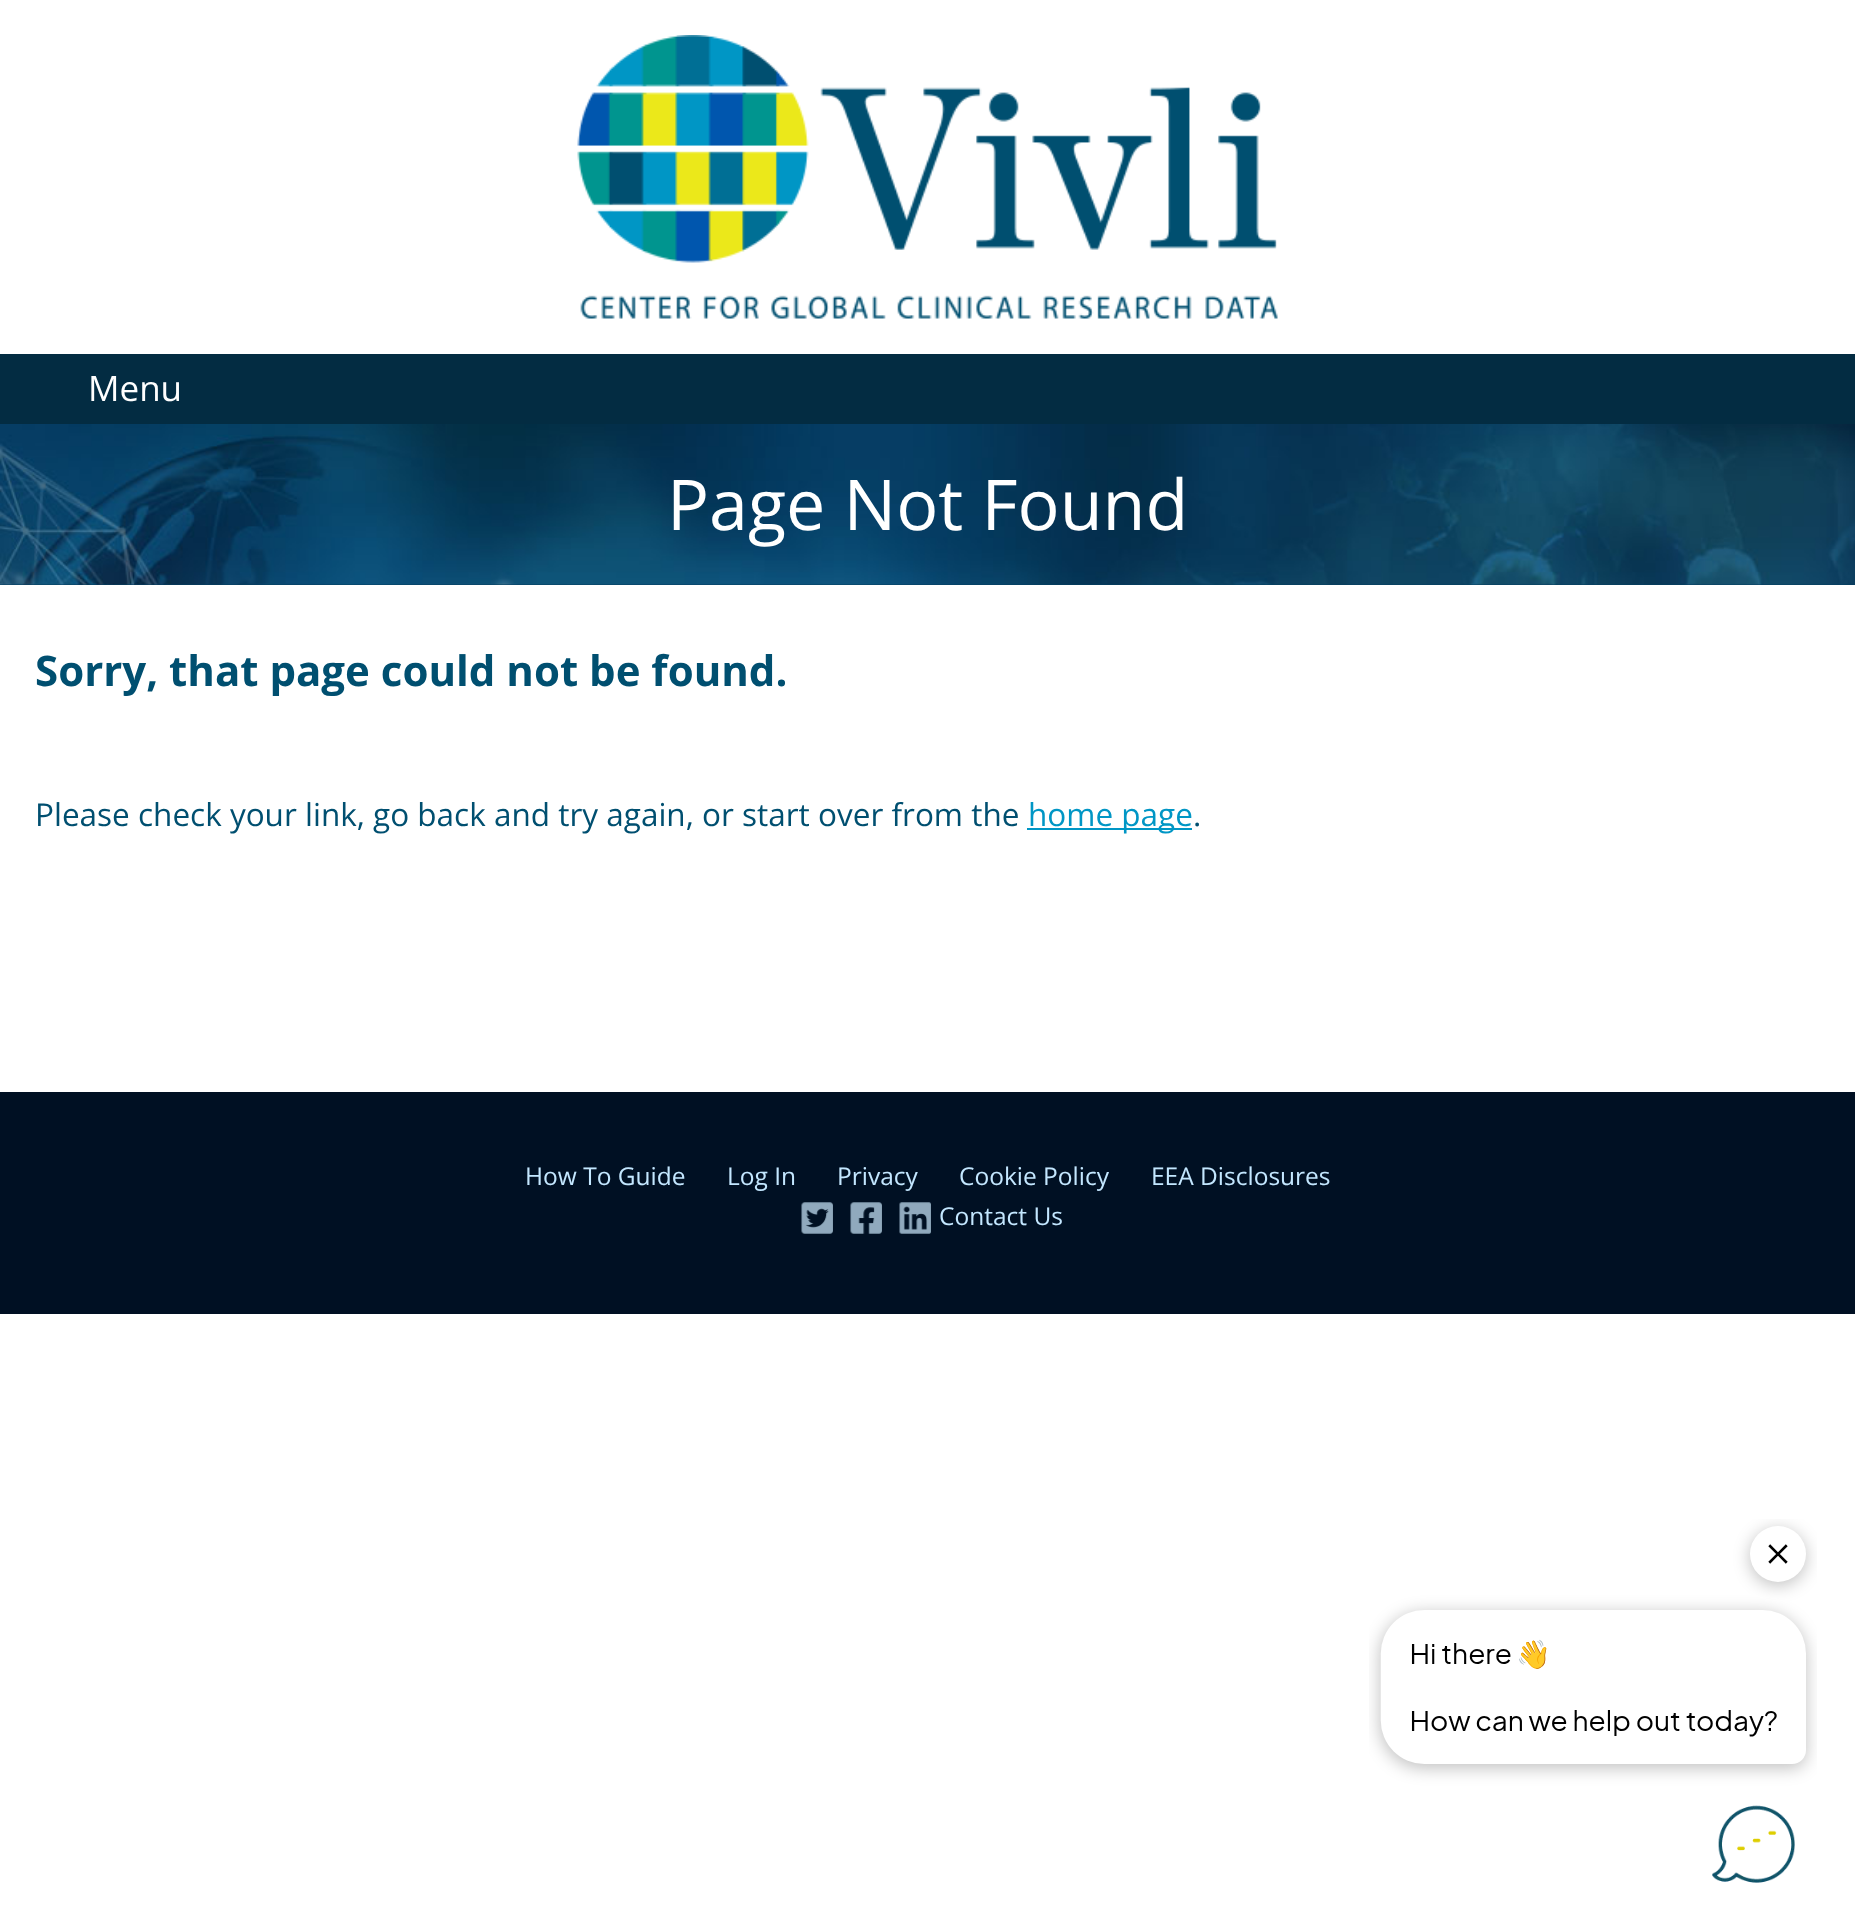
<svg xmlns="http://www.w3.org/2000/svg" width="1855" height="1931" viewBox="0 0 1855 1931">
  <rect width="100%" height="100%" fill="#fff"/>
  <image x="577" y="35" width="701" height="284" href="img/1.png"/>
  <path d="M0 354h1855v70H0z" fill="#032c42"/>
  <path d="M0 584h1855v1H0z" fill="#053f60"/>
  <image x="0" y="424" width="1855" height="161" href="img/2.png"/>
  <path d="M1027 828h165v2H1027z" fill="#0096c5"/>
  <path d="M0 1092h1855v222H0z" fill="#001023"/>
  <image x="801" y="1202" width="32" height="32" href="img/3.png"/>
  <image x="850" y="1202" width="32" height="32" href="img/4.png"/>
  <image x="899" y="1202" width="32" height="32" href="img/5.png"/>
  <image x="1369" y="1519" width="448" height="364" href="img/6.png"/>
  <text x="88" y="401" font-family="Open Sans" font-size="35" fill="#fff">Menu</text>
  <text x="667" y="530" font-family="Open Sans" font-size="70" fill="#fff">Page Not Found</text>
  <text x="35" y="686" font-family="Open Sans" font-size="42" font-weight="bold" fill="#004f70">Sorry, that page could not be found.</text>
  <text x="35" y="826" font-family="Open Sans" font-size="31.5" fill="#004f70">Please check your link, go back and try again, or start over from the</text>
  <text x="1028" y="826" font-family="Open Sans" font-size="31.5" fill="#0096c5">home page</text>
  <text x="1193" y="826" font-family="Open Sans" font-size="31.5" fill="#004f70">.</text>
  <g font-family="Open Sans" font-size="24.5" fill="#c3e7ff">
    <text x="525" y="1185">How To Guide</text>
    <text x="727" y="1185">Log In</text>
    <text x="837" y="1185">Privacy</text>
    <text x="959" y="1185">Cookie Policy</text>
    <text x="1151" y="1185">EEA Disclosures</text>
    <text x="939" y="1225">Contact Us</text>
  </g>
</svg>
